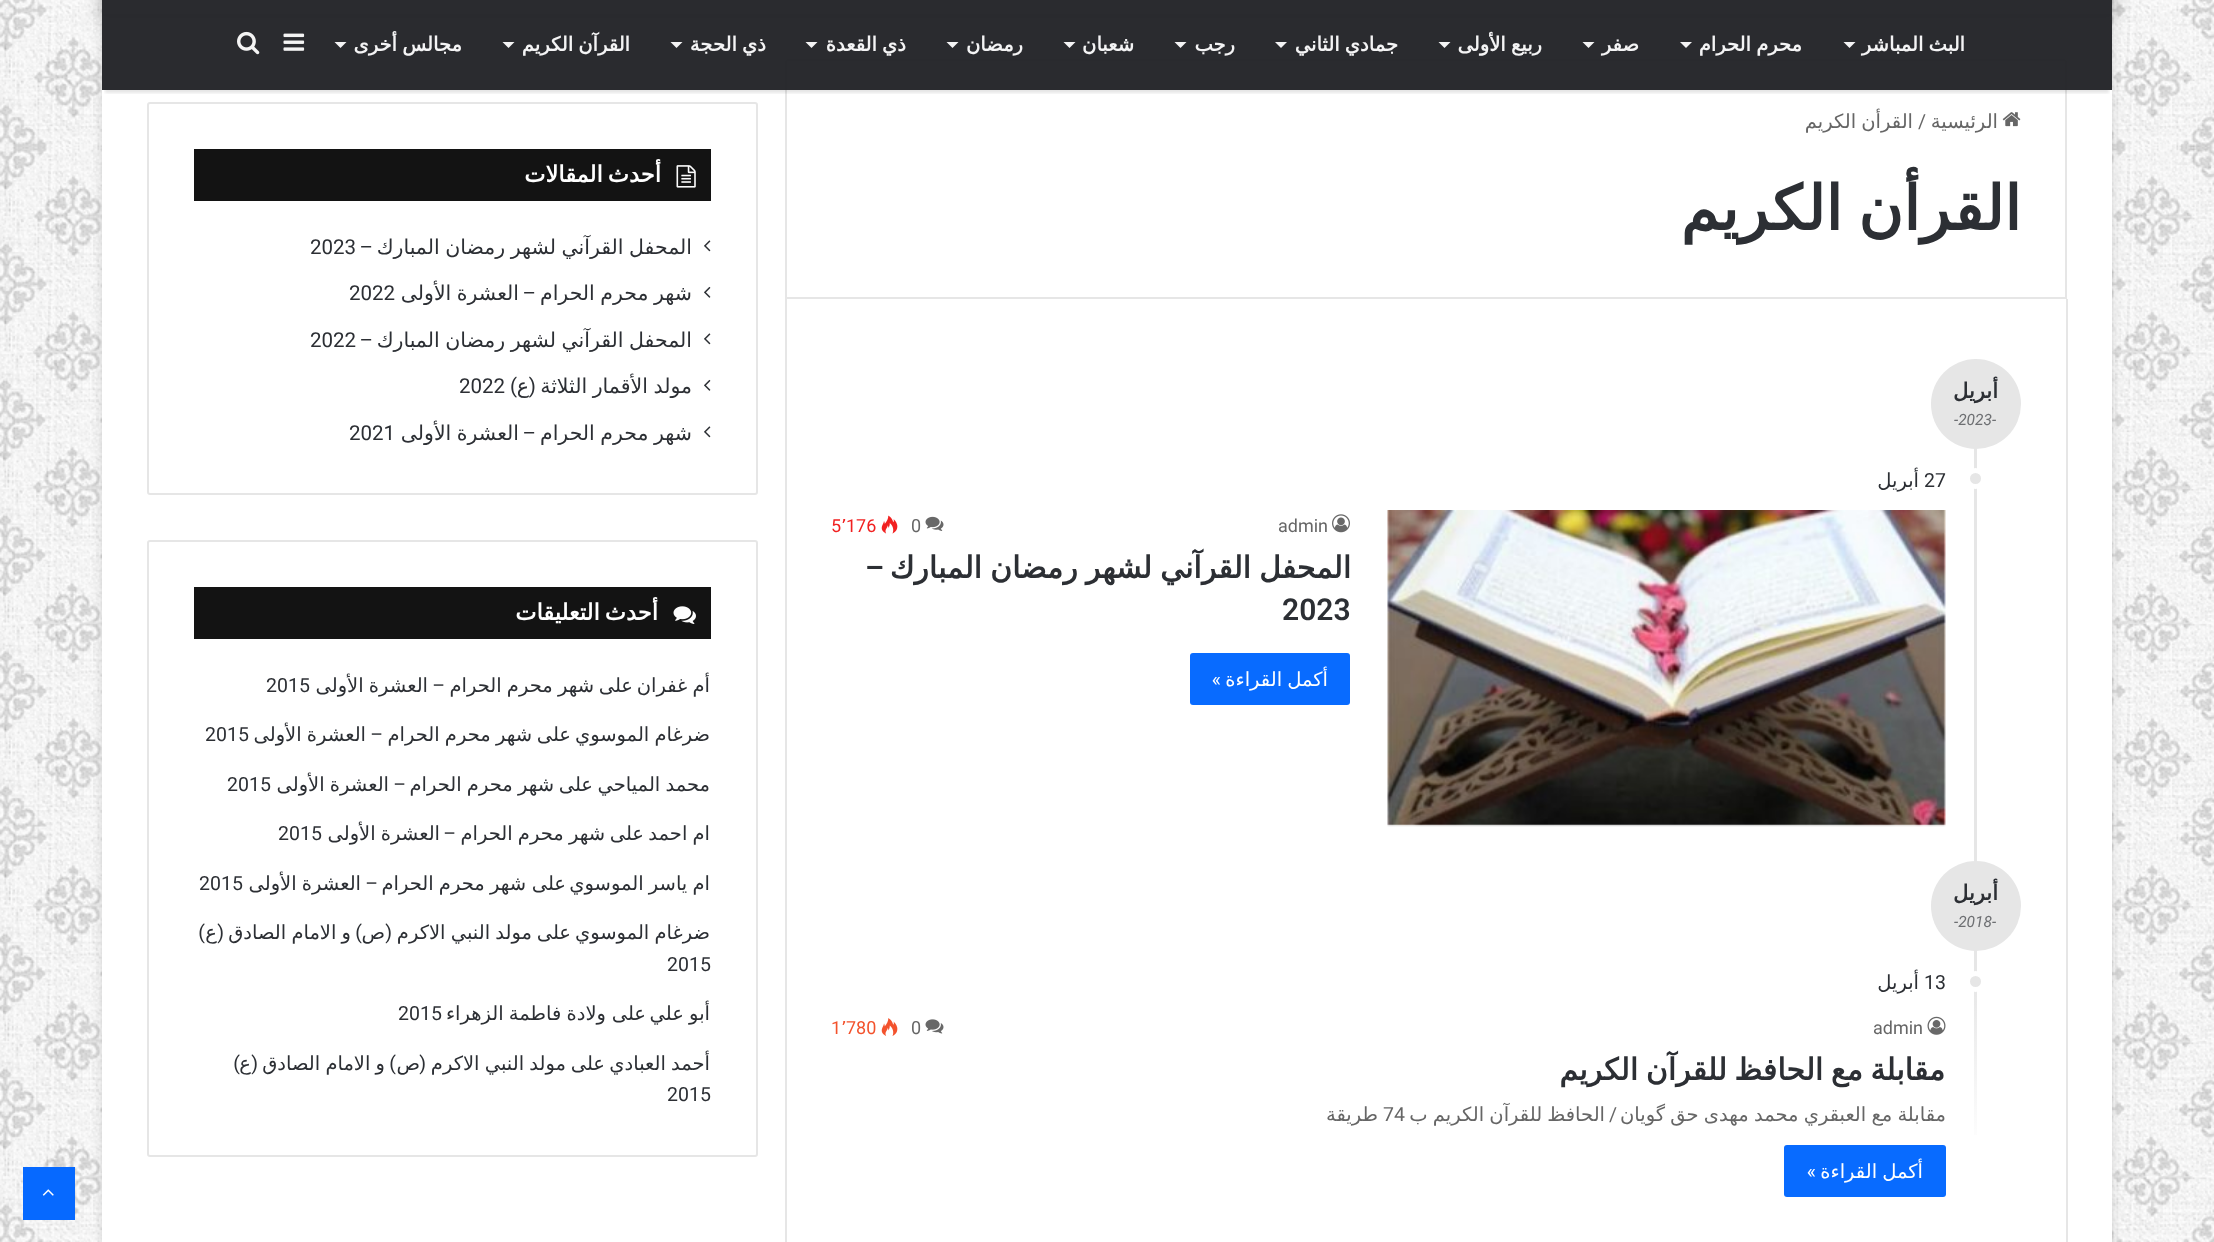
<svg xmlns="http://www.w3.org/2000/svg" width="2214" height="1242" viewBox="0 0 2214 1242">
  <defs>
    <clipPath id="clip1"><path d="M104 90h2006v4H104z"/></clipPath>
    <linearGradient id="g1" gradientUnits="userSpaceOnUse" x1="1976" y1="972" x2="1976" y2="1197"><stop offset="0" stop-color="#e5e5e5"/><stop offset="0.8" stop-color="#fff"/></linearGradient>
  </defs>
  <rect width="100%" height="100%" fill="#fff"/>
  <image x="0" y="0" width="2214" height="1242" href="img/1.png"/>
  <path d="M102 -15h2010v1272H102z" fill="#ababab80" filter="blur(5px)"/>
  <path d="M102 14h2010v1228H102z" fill="#fff"/>
  <path d="M95 -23h2025v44H95z" fill="#0000001a" filter="blur(7.5px)"/>
  <path d="M102 0h2010v14H102z" fill="#fff"/>
  <path d="M788 60H2064C2065 60 2066 61 2066 62V298H786V62C786 61 787 60 788 60Z" fill="none" stroke="#e6e6e6" stroke-width="2"/>
  <g clip-path="url(#clip1)">
    <path d="M105 9h2004v84H105z" fill="#0000001a" filter="blur(1.5px)"/>
  </g>
  <path d="M102 0h2010v90H102z" fill="#1f2024f2"/>
  <path d="M1843.5 42H1855.5L1849.5 48Z" fill="#f4f4f5"/>
  <path d="M1680 42H1692L1686 48Z" fill="#f4f4f5"/>
  <path d="M1582.5 42H1594.5L1588.5 48Z" fill="#f4f4f5"/>
  <path d="M1438.5 42H1450.5L1444.5 48Z" fill="#f4f4f5"/>
  <path d="M1275 42H1287L1281 48Z" fill="#f4f4f5"/>
  <path d="M1174.5 42H1186.5L1180.5 48Z" fill="#f4f4f5"/>
  <path d="M1063.5 42H1075.5L1069.5 48Z" fill="#f4f4f5"/>
  <path d="M946.5 42H958.5L952.5 48Z" fill="#f4f4f5"/>
  <path d="M805.5 42H817.5L811.5 48Z" fill="#f4f4f5"/>
  <path d="M670.5 42H682.5L676.5 48Z" fill="#f4f4f5"/>
  <path d="M502.5 42H514.5L508.5 48Z" fill="#f4f4f5"/>
  <path d="M334.5 42H346.5L340.5 48Z" fill="#f4f4f5"/>
  <image x="283" y="33" width="22" height="18" href="img/2.png"/>
  <image x="237" y="31" width="23" height="24" href="img/3.png"/>
  <image x="2002" y="112" width="19" height="15" href="img/4.png"/>
  <path d="M2066 299h2v943H2066z" fill="#e6e6e6"/>
  <path d="M785 299h2v943H785z" fill="#e6e6e6"/>
  <path d="M1974 359h3v613H1974z" fill="#e6e6e6"/>
  <circle cx="1976" cy="404" r="45" fill="#e6e6e6"/>
  <circle cx="1975.5" cy="478.5" r="8" fill="#e6e6e6" stroke="#fff" stroke-width="5"/>
  <image x="1387" y="510" width="559" height="317" href="img/5.png"/>
  <image x="1332" y="514" width="18" height="19" href="img/6.png"/>
  <image x="925" y="516" width="19" height="15" href="img/7.png"/>
  <image x="881" y="515" width="17" height="19" href="img/8.png"/>
  <rect x="1190" y="653" width="160" height="52" rx="3" fill="#086bff"/>
  <circle cx="1976" cy="906" r="45" fill="#e6e6e6"/>
  <path d="M1974 991h3v144H1974z" fill="url(#g1)"/>
  <circle cx="1975.5" cy="981.5" r="8" fill="#e6e6e6" stroke="#fff" stroke-width="5"/>
  <image x="1927" y="1016" width="19" height="19" href="img/9.png"/>
  <image x="925" y="1019" width="19" height="15" href="img/10.png"/>
  <image x="881" y="1018" width="17" height="18" href="img/11.png"/>
  <rect x="1784" y="1145" width="162" height="52" rx="3" fill="#086bff"/>
  <rect x="148" y="103" width="609" height="391" rx="2" fill="none" stroke="#e6e6e6" stroke-width="2"/>
  <path d="M194 149h517v52H194z" fill="#131313"/>
  <image x="676" y="165" width="20" height="23" href="img/12.png"/>
  <image x="704" y="240" width="7" height="12" href="img/13.png"/>
  <image x="704" y="286" width="7" height="12" href="img/14.png"/>
  <image x="704" y="333" width="7" height="12" href="img/13.png"/>
  <image x="704" y="379" width="7" height="12" href="img/14.png"/>
  <image x="704" y="426" width="7" height="12" href="img/13.png"/>
  <rect x="148" y="541" width="609" height="615" rx="2" fill="none" stroke="#e6e6e6" stroke-width="2"/>
  <path d="M194 587h517v52H194z" fill="#131313"/>
  <image x="673" y="606" width="23" height="18" href="img/15.png"/>
  <path d="M23 1167h52v53H23z" fill="#0669ff"/>
  <image x="42" y="1189" width="12" height="7" href="img/16.png"/>
  <g font-family="DejaVu Sans" font-size="19.5" font-weight="bold" direction="rtl" fill="#f4f4f5">
    <text x="1965" y="51" word-spacing="-1">البث المباشر</text>
    <text x="1802" y="51" word-spacing="-1">محرم الحرام</text>
    <text x="1639" y="51">صفر</text>
    <text x="1542" y="51" word-spacing="-1">ربيع الأولى</text>
    <text x="1398" y="51" word-spacing="-1">جمادي الثاني</text>
    <text x="1235" y="51">رجب</text>
    <text x="1134" y="51">شعبان</text>
    <text x="1023" y="51">رمضان</text>
    <text x="906" y="51" word-spacing="-1">ذي القعدة</text>
    <text x="766" y="51" word-spacing="-1">ذي الحجة</text>
    <text x="630" y="51" word-spacing="-1">القرآن الکریم</text>
    <text x="462" y="51" word-spacing="-1">مجالس أخرى</text>
  </g>
  <text x="1998" y="128" font-family="DejaVu Sans" font-size="19.5" direction="rtl" fill="#666">الرئيسية</text>
  <text x="1918" y="128" font-family="Roboto" font-size="19.5" fill="#666">/</text>
  <text x="1913" y="128" word-spacing="-1" font-family="DejaVu Sans" font-size="19.5" direction="rtl" fill="#666">القرأن الكريم</text>
  <text x="2021" y="230" word-spacing="-4" font-family="DejaVu Sans" font-size="61.5" font-weight="bold" direction="rtl" fill="#2c2f34">القرأن الكريم</text>
  <text x="1998" y="398" font-family="DejaVu Sans" font-size="21" font-weight="bold" direction="rtl" fill="#2c2f34">أبريل</text>
  <text x="1954" y="425" font-family="Roboto" font-size="15.5" font-style="italic" fill="#6d6f72">-2023-</text>
  <text x="1924" y="487" font-family="Roboto" font-size="19.5" fill="#2c2f34">27</text>
  <text x="1919" y="487" font-family="DejaVu Sans" font-size="19.5" direction="rtl" fill="#2c2f34">أبريل</text>
  <g font-family="Roboto" font-size="18" fill="#666">
    <text x="1278" y="532">admin</text>
    <text x="911" y="532">0</text>
  </g>
  <text x="846" y="532" font-family="Roboto" font-size="18" fill="#f12020">176</text>
  <text x="841" y="532" font-family="DejaVu Sans" font-size="18" fill="#f12020">٬</text>
  <text x="831" y="532" font-family="Roboto" font-size="18" fill="#f12020">5</text>
  <text x="1351" y="578" word-spacing="-1.5" font-family="DejaVu Sans" font-size="30" font-weight="bold" direction="rtl" fill="#2c2f34">المحفل القرآني لشهر رمضان المبارك</text>
  <text x="884" y="578" font-family="Roboto" font-size="30" font-weight="600" direction="rtl" fill="#2c2f34">–</text>
  <text x="1282" y="620" font-family="Roboto" font-size="30" font-weight="600" fill="#2c2f34">2023</text>
  <text x="1328" y="686" word-spacing="-1" font-family="DejaVu Sans" font-size="19.5" direction="rtl" fill="#fff">أكمل القراءة</text>
  <text x="1221" y="686" font-family="Roboto" font-size="19.5" direction="rtl" fill="#fff">»</text>
  <text x="1998" y="900" font-family="DejaVu Sans" font-size="21" font-weight="bold" direction="rtl" fill="#2c2f34">أبريل</text>
  <text x="1954" y="927" font-family="Roboto" font-size="15.5" font-style="italic" fill="#6d6f72">-2018-</text>
  <text x="1924" y="989" font-family="Roboto" font-size="19.5" fill="#2c2f34">13</text>
  <text x="1919" y="989" font-family="DejaVu Sans" font-size="19.5" direction="rtl" fill="#2c2f34">أبريل</text>
  <g font-family="Roboto" font-size="18" fill="#666">
    <text x="1873" y="1034">admin</text>
    <text x="911" y="1034">0</text>
  </g>
  <text x="846" y="1034" font-family="Roboto" font-size="18" fill="#f3522c">780</text>
  <text x="841" y="1034" font-family="DejaVu Sans" font-size="18" fill="#f3522c">٬</text>
  <text x="831" y="1034" font-family="Roboto" font-size="18" fill="#f3522c">1</text>
  <text x="1945" y="1080" word-spacing="-2" font-family="DejaVu Sans" font-size="30" font-weight="bold" direction="rtl" fill="#2c2f34">مقابلة مع الحافظ للقرآن الکریم</text>
  <text x="1946" y="1121" word-spacing="-1" font-family="DejaVu Sans" font-size="19.5" direction="rtl" fill="#666">مقابلة مع العبقري محمد مهدی حق گویان</text>
  <text x="1617" y="1121" font-family="Roboto" font-size="19.5" direction="rtl" fill="#666">/</text>
  <text x="1605" y="1121" word-spacing="-1" font-family="DejaVu Sans" font-size="19.5" direction="rtl" fill="#666">الحافظ للقرآن الکریم ب</text>
  <text x="1383" y="1121" font-family="Roboto" font-size="19.5" fill="#666">74</text>
  <text x="1378" y="1121" font-family="DejaVu Sans" font-size="19.5" direction="rtl" fill="#666">طریقة</text>
  <text x="1923" y="1178" word-spacing="-1" font-family="DejaVu Sans" font-size="19.5" direction="rtl" fill="#fff">أكمل القراءة</text>
  <text x="1816" y="1178" font-family="Roboto" font-size="19.5" direction="rtl" fill="#fff">»</text>
  <text x="661" y="182" word-spacing="-2" font-family="DejaVu Sans" font-size="22.5" font-weight="bold" direction="rtl" fill="#fff">أحدث المقالات</text>
  <text x="692" y="254" word-spacing="-1" font-family="DejaVu Sans" font-size="20.5" direction="rtl" fill="#2c2f34">المحفل القرآني لشهر رمضان المبارك</text>
  <text x="373" y="254" font-family="Roboto" font-size="20.5" direction="rtl" fill="#2c2f34">–</text>
  <text x="310" y="254" font-family="Roboto" font-size="20.5" fill="#2c2f34">2023</text>
  <text x="692" y="300" word-spacing="-1" font-family="DejaVu Sans" font-size="20.5" direction="rtl" fill="#2c2f34">شهر محرم الحرام</text>
  <text x="536" y="300" font-family="Roboto" font-size="20.5" direction="rtl" fill="#2c2f34">–</text>
  <text x="519" y="300" word-spacing="-1" font-family="DejaVu Sans" font-size="20.5" direction="rtl" fill="#2c2f34">العشرة الأولى</text>
  <text x="349" y="300" font-family="Roboto" font-size="20.5" fill="#2c2f34">2022</text>
  <text x="692" y="347" word-spacing="-1" font-family="DejaVu Sans" font-size="20.5" direction="rtl" fill="#2c2f34">المحفل القرآني لشهر رمضان المبارك</text>
  <text x="373" y="347" font-family="Roboto" font-size="20.5" direction="rtl" fill="#2c2f34">–</text>
  <text x="310" y="347" font-family="Roboto" font-size="20.5" fill="#2c2f34">2022</text>
  <text x="692" y="393" word-spacing="-1" font-family="DejaVu Sans" font-size="20.5" direction="rtl" fill="#2c2f34">مولد الأقمار الثلاثة</text>
  <text x="536" y="393" font-family="Roboto" font-size="20.5" direction="rtl" fill="#2c2f34">(</text>
  <text x="529" y="393" font-family="DejaVu Sans" font-size="20.5" direction="rtl" fill="#2c2f34">ع</text>
  <text x="517" y="393" font-family="Roboto" font-size="20.5" direction="rtl" fill="#2c2f34">)</text>
  <text x="459" y="393" font-family="Roboto" font-size="20.5" fill="#2c2f34">2022</text>
  <text x="692" y="440" word-spacing="-1" font-family="DejaVu Sans" font-size="20.5" direction="rtl" fill="#2c2f34">شهر محرم الحرام</text>
  <text x="536" y="440" font-family="Roboto" font-size="20.5" direction="rtl" fill="#2c2f34">–</text>
  <text x="519" y="440" word-spacing="-1" font-family="DejaVu Sans" font-size="20.5" direction="rtl" fill="#2c2f34">العشرة الأولى</text>
  <text x="349" y="440" font-family="Roboto" font-size="20.5" fill="#2c2f34">2021</text>
  <text x="658" y="620" word-spacing="-2" font-family="DejaVu Sans" font-size="22.5" font-weight="bold" direction="rtl" fill="#fff">أحدث التعليقات</text>
  <g font-family="DejaVu Sans" font-size="19.5" direction="rtl" fill="#2c2f34">
    <text x="710" y="692" word-spacing="-1">أم غفران</text>
    <text x="633" y="692">على</text>
    <text x="594" y="692" word-spacing="-1">شهر محرم الحرام</text>
  </g>
  <text x="445" y="692" font-family="Roboto" font-size="19.5" direction="rtl" fill="#2c2f34">–</text>
  <text x="428" y="692" word-spacing="-1" font-family="DejaVu Sans" font-size="19.5" direction="rtl" fill="#2c2f34">العشرة الأولى</text>
  <text x="266" y="692" font-family="Roboto" font-size="19.5" fill="#2c2f34">2015</text>
  <g font-family="DejaVu Sans" font-size="19.5" direction="rtl" fill="#2c2f34">
    <text x="710" y="741" word-spacing="-1">ضرغام الموسوي</text>
    <text x="571" y="741">على</text>
    <text x="532" y="741" word-spacing="-1">شهر محرم الحرام</text>
  </g>
  <text x="383" y="741" font-family="Roboto" font-size="19.5" direction="rtl" fill="#2c2f34">–</text>
  <text x="366" y="741" word-spacing="-1" font-family="DejaVu Sans" font-size="19.5" direction="rtl" fill="#2c2f34">العشرة الأولى</text>
  <text x="205" y="741" font-family="Roboto" font-size="19.5" fill="#2c2f34">2015</text>
  <g font-family="DejaVu Sans" font-size="19.5" direction="rtl" fill="#2c2f34">
    <text x="710" y="791" word-spacing="-1">محمد المياحي</text>
    <text x="593" y="791">على</text>
    <text x="554" y="791" word-spacing="-1">شهر محرم الحرام</text>
  </g>
  <text x="406" y="791" font-family="Roboto" font-size="19.5" direction="rtl" fill="#2c2f34">–</text>
  <text x="389" y="791" word-spacing="-1" font-family="DejaVu Sans" font-size="19.5" direction="rtl" fill="#2c2f34">العشرة الأولى</text>
  <text x="227" y="791" font-family="Roboto" font-size="19.5" fill="#2c2f34">2015</text>
  <g font-family="DejaVu Sans" font-size="19.5" direction="rtl" fill="#2c2f34">
    <text x="710" y="840" word-spacing="-1">ام احمد</text>
    <text x="644" y="840">على</text>
    <text x="605" y="840" word-spacing="-1">شهر محرم الحرام</text>
  </g>
  <text x="456" y="840" font-family="Roboto" font-size="19.5" direction="rtl" fill="#2c2f34">–</text>
  <text x="440" y="840" word-spacing="-1" font-family="DejaVu Sans" font-size="19.5" direction="rtl" fill="#2c2f34">العشرة الأولى</text>
  <text x="278" y="840" font-family="Roboto" font-size="19.5" fill="#2c2f34">2015</text>
  <g font-family="DejaVu Sans" font-size="19.5" direction="rtl" fill="#2c2f34">
    <text x="710" y="890" word-spacing="-1">ام ياسر الموسوي</text>
    <text x="566" y="890">على</text>
    <text x="526" y="890" word-spacing="-1">شهر محرم الحرام</text>
  </g>
  <text x="378" y="890" font-family="Roboto" font-size="19.5" direction="rtl" fill="#2c2f34">–</text>
  <text x="361" y="890" word-spacing="-1" font-family="DejaVu Sans" font-size="19.5" direction="rtl" fill="#2c2f34">العشرة الأولى</text>
  <text x="199" y="890" font-family="Roboto" font-size="19.5" fill="#2c2f34">2015</text>
  <g font-family="DejaVu Sans" font-size="19.5" direction="rtl" fill="#2c2f34">
    <text x="710" y="939" word-spacing="-1">ضرغام الموسوي</text>
    <text x="571" y="939">على</text>
    <text x="532" y="939" word-spacing="-1">مولد النبي الاکرم</text>
  </g>
  <text x="392" y="939" font-family="Roboto" font-size="19.5" direction="rtl" fill="#2c2f34">(</text>
  <text x="385" y="939" font-family="DejaVu Sans" font-size="19.5" direction="rtl" fill="#2c2f34">ص</text>
  <text x="362" y="939" font-family="Roboto" font-size="19.5" direction="rtl" fill="#2c2f34">)</text>
  <text x="351" y="939" word-spacing="-1" font-family="DejaVu Sans" font-size="19.5" direction="rtl" fill="#2c2f34">و الامام الصادق</text>
  <text x="224" y="939" font-family="Roboto" font-size="19.5" direction="rtl" fill="#2c2f34">(</text>
  <text x="217" y="939" font-family="DejaVu Sans" font-size="19.5" direction="rtl" fill="#2c2f34">ع</text>
  <text x="205" y="939" font-family="Roboto" font-size="19.5" direction="rtl" fill="#2c2f34">)</text>
  <text x="667" y="971" font-family="Roboto" font-size="19.5" fill="#2c2f34">2015</text>
  <g font-family="DejaVu Sans" font-size="19.5" direction="rtl" fill="#2c2f34">
    <text x="710" y="1020" word-spacing="-1">أبو علي</text>
    <text x="646" y="1020">على</text>
    <text x="606" y="1020" word-spacing="-1">ولادة فاطمة الزهراء</text>
  </g>
  <text x="398" y="1020" font-family="Roboto" font-size="19.5" fill="#2c2f34">2015</text>
  <g font-family="DejaVu Sans" font-size="19.5" direction="rtl" fill="#2c2f34">
    <text x="710" y="1070" word-spacing="-1">أحمد العبادي</text>
    <text x="605" y="1070">على</text>
    <text x="566" y="1070" word-spacing="-1">مولد النبي الاکرم</text>
  </g>
  <text x="426" y="1070" font-family="Roboto" font-size="19.5" direction="rtl" fill="#2c2f34">(</text>
  <text x="420" y="1070" font-family="DejaVu Sans" font-size="19.5" direction="rtl" fill="#2c2f34">ص</text>
  <text x="396" y="1070" font-family="Roboto" font-size="19.5" direction="rtl" fill="#2c2f34">)</text>
  <text x="385" y="1070" word-spacing="-1" font-family="DejaVu Sans" font-size="19.5" direction="rtl" fill="#2c2f34">و الامام الصادق</text>
  <text x="258" y="1070" font-family="Roboto" font-size="19.5" direction="rtl" fill="#2c2f34">(</text>
  <text x="251" y="1070" font-family="DejaVu Sans" font-size="19.5" direction="rtl" fill="#2c2f34">ع</text>
  <text x="240" y="1070" font-family="Roboto" font-size="19.5" direction="rtl" fill="#2c2f34">)</text>
  <text x="667" y="1101" font-family="Roboto" font-size="19.5" fill="#2c2f34">2015</text>
</svg>
